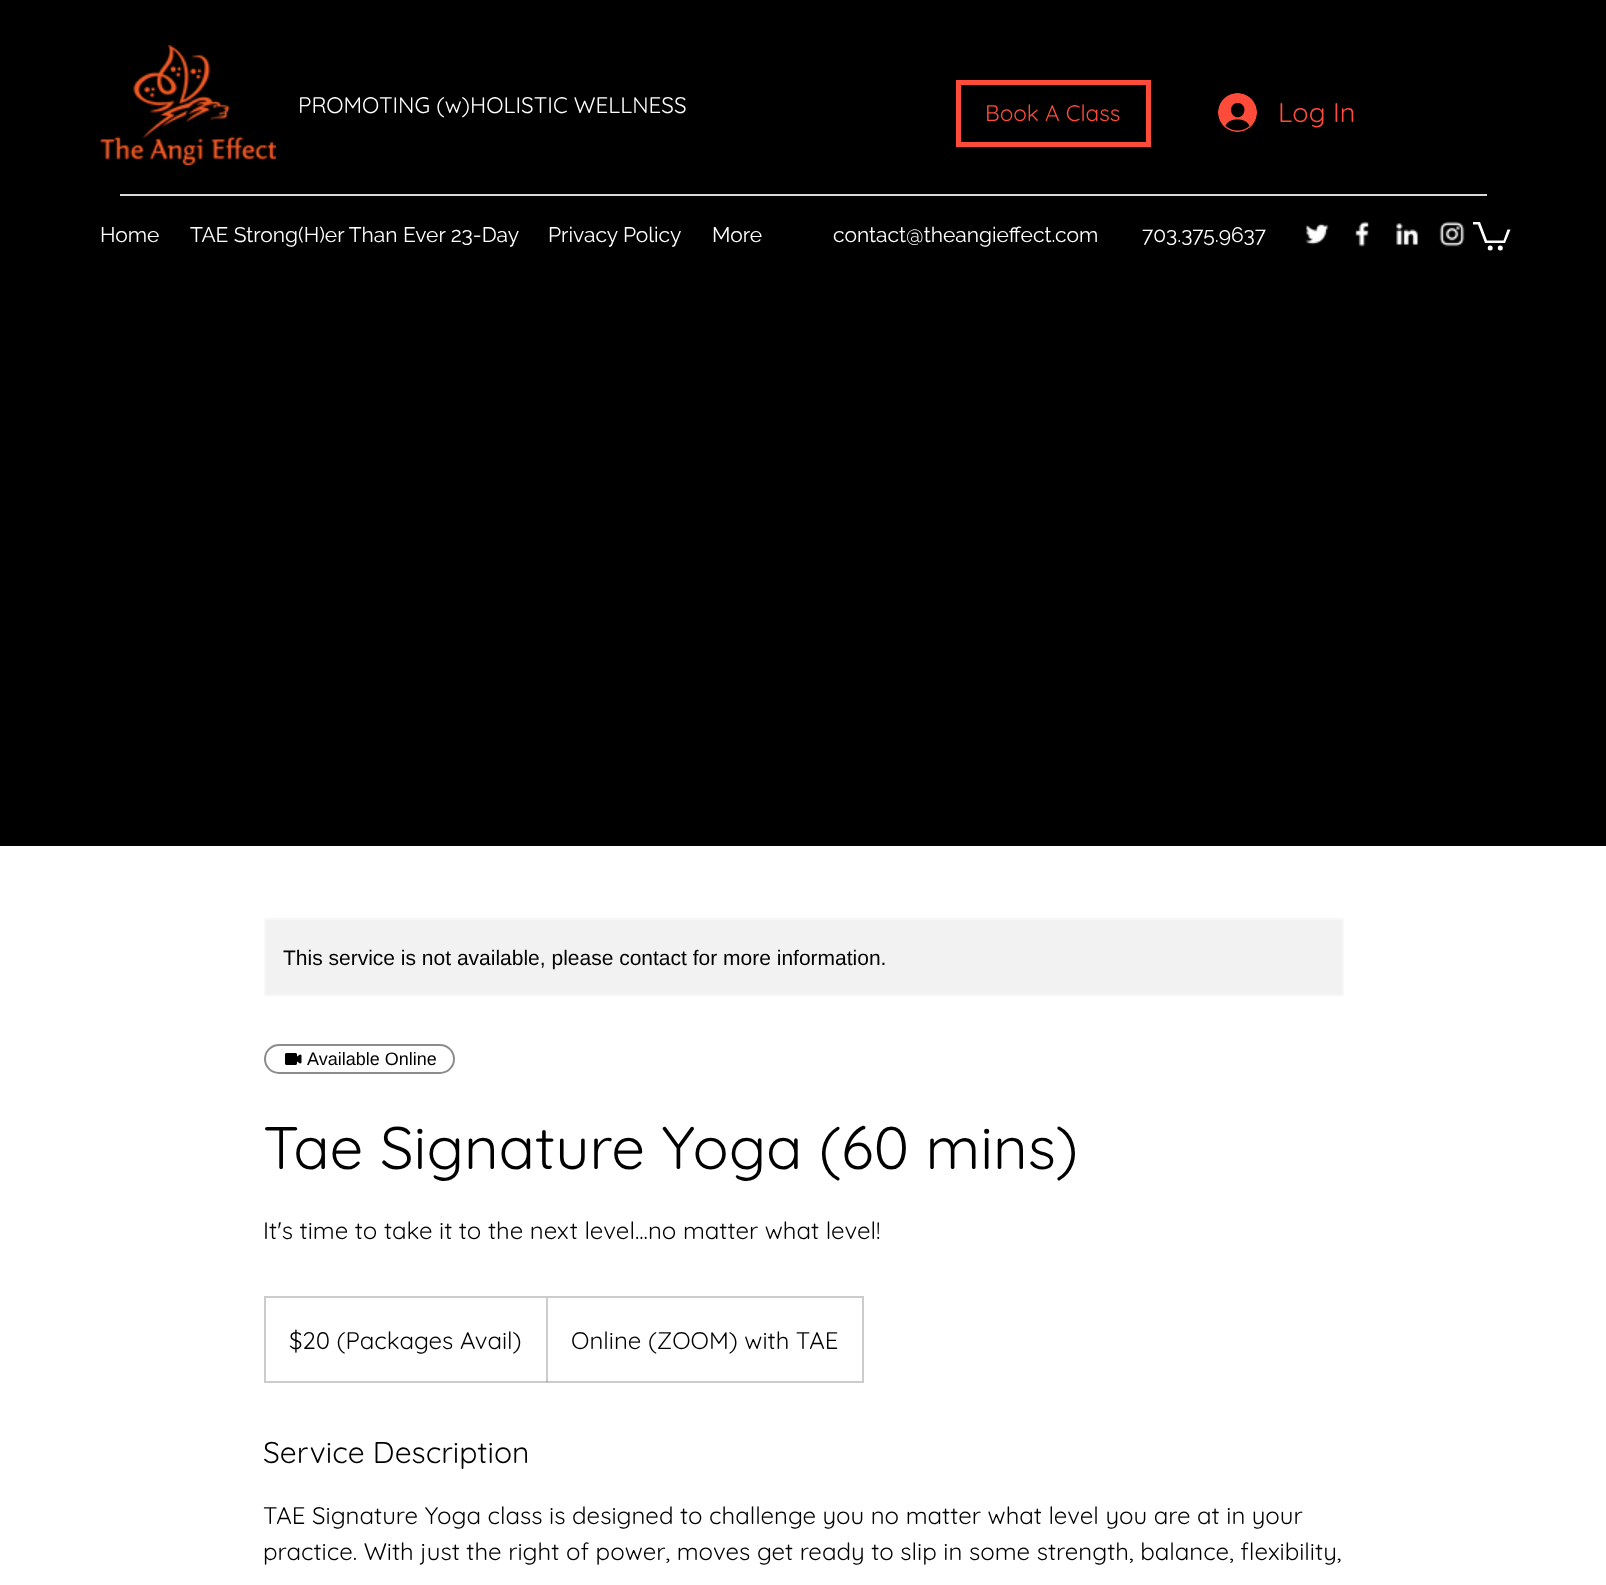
<svg xmlns="http://www.w3.org/2000/svg" width="1606" height="1585" viewBox="0 0 1606 1585">
  <defs>
    <clipPath id="clip1"><path d="M266 1298h597v84H266z"/></clipPath>
  </defs>
  <rect width="100%" height="100%" fill="#fff"/>
  <path d="M0 0h1606v846H0z" fill="#000"/>
  <image x="100" y="45" width="176" height="120" href="img/1.png"/>
  <path d="M958.5 82.5h190v62H958.5z" fill="none" stroke="#ff4b39" stroke-width="5"/>
  <image x="1218" y="93" width="39" height="39" href="img/2.png"/>
  <path d="M120 194h1367v2H120z" fill="#d9d9d9"/>
  <image x="1305" y="223" width="24" height="22" href="img/3.png"/>
  <image x="1355" y="221" width="14" height="26" href="img/4.png"/>
  <image x="1396" y="223" width="23" height="23" href="img/5.png"/>
  <image x="1439" y="221" width="26" height="26" href="img/6.png"/>
  <path d="M1510.5 229.5L1505 243H1485L1478 224.5H1473V222H1480L1487 240.5H1503.5L1507.5 229.5" fill="#fff"/>
  <circle cx="1500.3" cy="248" r="2.5" fill="#fff"/>
  <circle cx="1490.2" cy="248" r="2.5" fill="#fff"/>
  <rect x="264" y="918" width="1080" height="78" rx="3" fill="#f2f2f2"/>
  <rect x="265" y="919" width="1078" height="76" rx="2" fill="none" stroke="#ffffff66" stroke-width="2"/>
  <rect x="265" y="1045" width="189" height="28" rx="14" fill="none" stroke="#8c8c8c" stroke-width="2"/>
  <image x="285" y="1053" width="17" height="12" href="img/7.png"/>
  <path d="M265 1297h598v85H265z" fill="none" stroke="#ccc" stroke-width="2"/>
  <g clip-path="url(#clip1)">
    <path d="M546 1382V1296L548 1298V1382Z" fill="#00000033"/>
  </g>
  <text x="298" y="113" font-family="Quicksand" font-size="22.5" fill="#fff">PROMOTING (w)HOLISTIC WELLNESS</text>
  <text x="985" y="121" font-family="Quicksand" font-size="22.5" fill="#ff4b39">Book A Class</text>
  <text x="1278" y="122" font-family="Quicksand" font-size="27" fill="#ff4b39">Log In</text>
  <g font-family="Raleway" font-size="21" fill="#fff">
    <text x="100" y="242">Home</text>
    <text x="190" y="242">TAE Strong(H)er Than Ever 23-Day</text>
    <text x="548" y="242">Privacy Policy</text>
    <text x="712" y="242">More</text>
    <text x="833" y="242">contact@theangieffect.com</text>
    <text x="1142" y="242">703.375.9637</text>
  </g>
  <text x="283" y="965" font-family="Liberation Sans" font-size="21" fill="#000">This service is not available, please contact for more information.</text>
  <text x="307" y="1065" font-family="Liberation Sans" font-size="18" fill="#000">Available Online</text>
  <text x="263" y="1169" font-family="Quicksand" font-size="60" fill="#000">Tae Signature Yoga (60 mins)</text>
  <g font-family="Quicksand" font-size="24" fill="#000">
    <text x="263" y="1239">It's time to take it to the next level...no matter what level!</text>
    <text x="289" y="1349">$20 (Packages Avail)</text>
    <text x="571" y="1349">Online (ZOOM) with TAE</text>
  </g>
  <text x="263" y="1463" font-family="Quicksand" font-size="30" fill="#000">Service Description</text>
  <g font-family="Quicksand" font-size="24" fill="#000">
    <text x="263" y="1524">TAE Signature Yoga class is designed to challenge you no matter what level you are at in your</text>
    <text x="263" y="1560">practice. With just the right of power, moves get ready to slip in some strength, balance, flexibility,</text>
  </g>
</svg>
